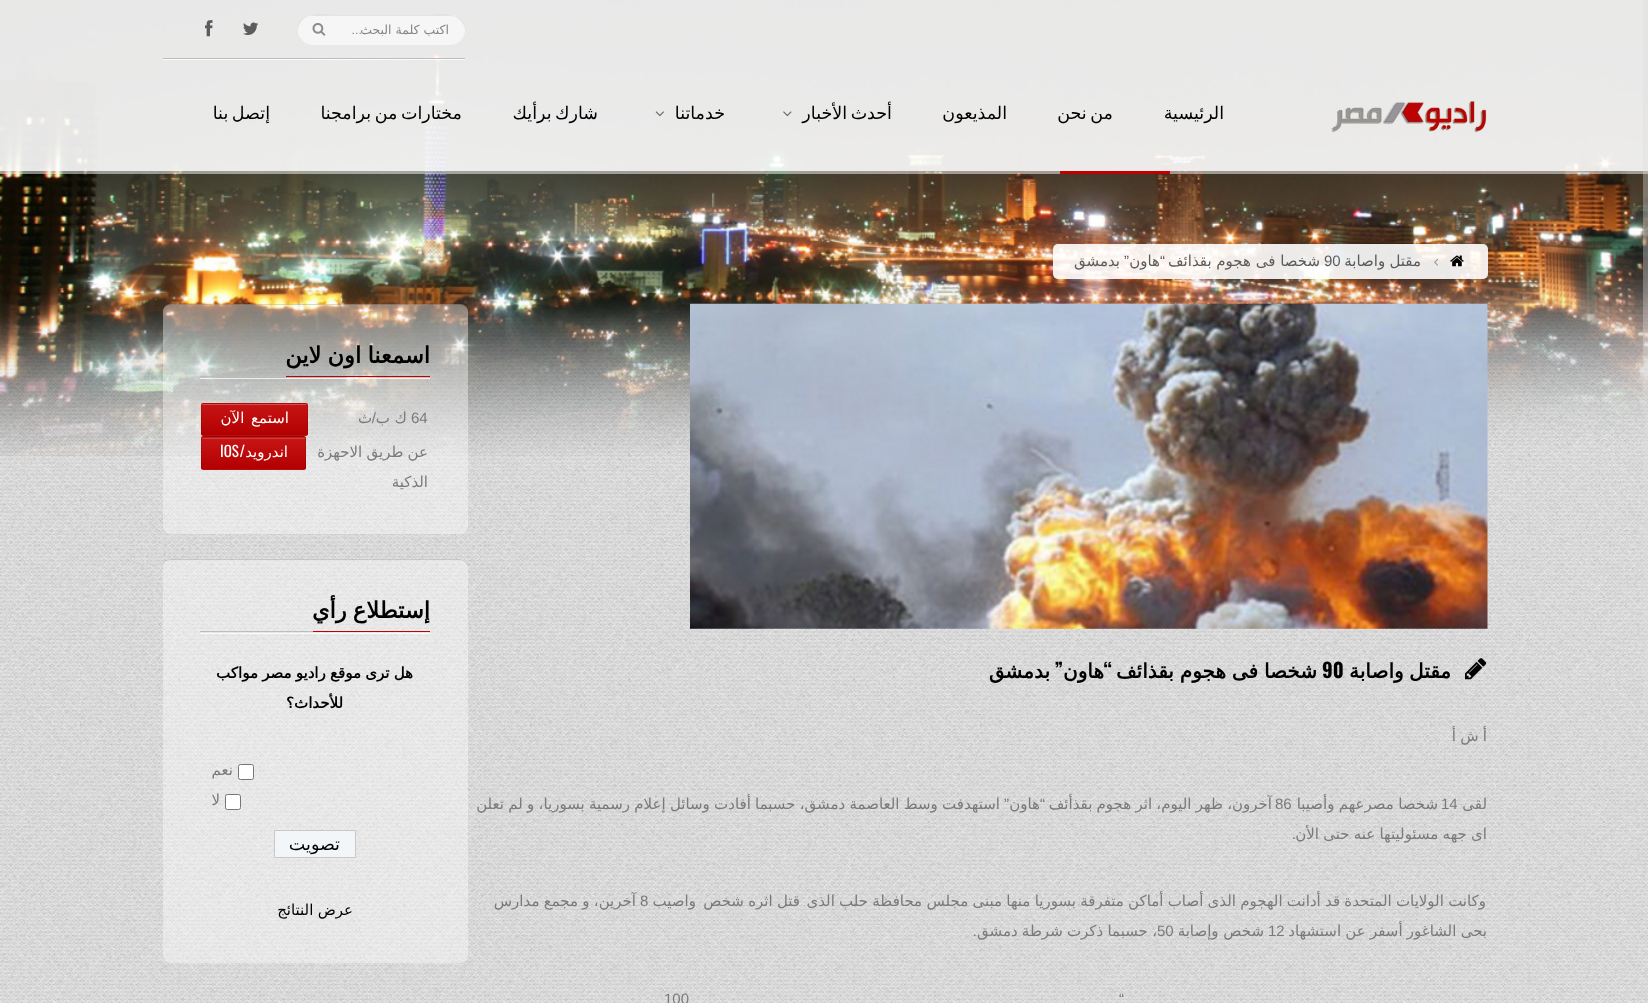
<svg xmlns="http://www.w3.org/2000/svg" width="1648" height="1003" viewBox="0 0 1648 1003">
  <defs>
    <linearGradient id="g1" gradientUnits="userSpaceOnUse" x1="203" y1="404" x2="203" y2="373"><stop offset="0" stop-color="#000" stop-opacity="0.08"/><stop offset="0.5" stop-color="#808080" stop-opacity="0.08"/><stop offset="1" stop-color="#fff" stop-opacity="0.08"/></linearGradient>
    <linearGradient id="g2" gradientUnits="userSpaceOnUse" x1="203" y1="435" x2="203" y2="404"><stop offset="0" stop-color="#000" stop-opacity="0.08"/><stop offset="0.5" stop-color="#808080" stop-opacity="0.08"/><stop offset="1" stop-color="#fff" stop-opacity="0.08"/></linearGradient>
    <linearGradient id="g3" gradientUnits="userSpaceOnUse" x1="203" y1="466" x2="203" y2="435"><stop offset="0" stop-color="#000" stop-opacity="0.08"/><stop offset="0.5" stop-color="#808080" stop-opacity="0.08"/><stop offset="1" stop-color="#fff" stop-opacity="0.08"/></linearGradient>
    <linearGradient id="g4" gradientUnits="userSpaceOnUse" x1="203" y1="438" x2="203" y2="406"><stop offset="0" stop-color="#000" stop-opacity="0.08"/><stop offset="0.5" stop-color="#808080" stop-opacity="0.08"/><stop offset="1" stop-color="#fff" stop-opacity="0.08"/></linearGradient>
    <linearGradient id="g5" gradientUnits="userSpaceOnUse" x1="203" y1="469" x2="203" y2="438"><stop offset="0" stop-color="#000" stop-opacity="0.08"/><stop offset="0.5" stop-color="#808080" stop-opacity="0.08"/><stop offset="1" stop-color="#fff" stop-opacity="0.08"/></linearGradient>
    <linearGradient id="g6" gradientUnits="userSpaceOnUse" x1="203" y1="500" x2="203" y2="469"><stop offset="0" stop-color="#000" stop-opacity="0.08"/><stop offset="0.5" stop-color="#808080" stop-opacity="0.08"/><stop offset="1" stop-color="#fff" stop-opacity="0.08"/></linearGradient>
  </defs>
  <rect width="100%" height="100%" fill="#fff"/>
  <image x="0" y="0" width="1648" height="1003" href="img/1.png"/>
  <image x="0" y="0" width="1648" height="456" href="img/2.png"/>
  <path d="M0 171V174H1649V3V171Z" fill="#ffffff80"/>
  <path d="M0 0h1648v171H0z" fill="#ffffffe6"/>
  <rect x="1643" width="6" height="713" rx="2.5" fill="#dddddd5c"/>
  <path d="M163 59h302v1H163z" fill="#ffffffbf"/>
  <path d="M163 58h302v1H163z" fill="#bdbdbd"/>
  <rect x="298" y="15" width="167" height="30" rx="15" fill="#f6f6f6"/>
  <path d="M312 16H450C458 16 465 23 465 31C466 10 439 15 427 15H336C324 15 297 10 298 30C298 23 304 16 312 16Z" fill="#00000012"/>
  <image x="312" y="23" width="14" height="13" href="img/3.png"/>
  <image x="243" y="22" width="16" height="13" href="img/4.png"/>
  <image x="205" y="20" width="8" height="17" href="img/5.png"/>
  <image x="1331" y="101" width="156" height="32" href="img/6.png"/>
  <image x="783" y="111" width="9" height="6" href="img/7.png"/>
  <image x="655" y="111" width="9" height="6" href="img/8.png"/>
  <path d="M1060 171h110v3H1060z" fill="#c20001"/>
  <rect x="1053" y="244" width="435" height="35" rx="5" fill="#ffffffe6"/>
  <image x="1450" y="255" width="14" height="12" href="img/9.png"/>
  <image x="1434" y="258" width="4" height="8" href="img/10.png"/>
  <image x="690" y="303" width="798" height="326" href="img/11.png"/>
  <image x="1465" y="658" width="22" height="22" href="img/12.png"/>
  <path d="M164 530C165 533 168 535 171 535H460C464 535 468 531 468 527V313L467 310L468 526C468 530 464 534 460 534H170C167 534 165 532 164 530Z" fill="#ffffff0a"/>
  <rect x="163" y="304" width="305" height="230" rx="8" fill="#ffffff66"/>
  <path d="M170 305H460C464 305 468 308 468 312C468 308 464 304 460 304H171C169 304 167 305 165 306C167 306 168 305 170 305Z" fill="#00000026"/>
  <path d="M286 376h144v1H286z" fill="#c20001"/>
  <path d="M200 378h230v1H200z" fill="#ffffffbf"/>
  <path d="M200 376h86v1H200z" fill="#bdbdbd"/>
  <rect x="201" y="403" width="107" height="33" rx="2.5" fill="#c20001"/>
  <path d="M201 403h107v1H201z" fill="url(#g1)"/>
  <path d="M201 404h107v31H201z" fill="url(#g2)"/>
  <path d="M201 435h107v1H201z" fill="url(#g3)"/>
  <rect x="201.5" y="403.5" width="106" height="32" rx="2" fill="none" stroke="#0000001a"/>
  <image x="202" y="403" width="105" height="2" href="img/13.png"/>
  <rect x="201" y="436" width="105" height="34" rx="2.5" fill="#c20001"/>
  <path d="M201 436h105v2H201z" fill="url(#g4)"/>
  <path d="M201 438h105v31H201z" fill="url(#g5)"/>
  <path d="M201 469h105v1H201z" fill="url(#g6)"/>
  <rect x="201.5" y="436.5" width="104" height="33" rx="2" fill="none" stroke="#0000001a"/>
  <image x="202" y="437" width="103" height="2" href="img/14.png"/>
  <rect x="163" y="559" width="305" height="404" rx="8" fill="#ffffff66"/>
  <path d="M170 560H460C464 560 468 563 468 568V567C468 563 464 559 460 559H171C169 559 166 560 165 562C166 561 168 560 170 560Z" fill="#00000026"/>
  <path d="M313 631h117v1H313z" fill="#c20001"/>
  <path d="M200 633h230v1H200z" fill="#ffffffbf"/>
  <path d="M200 631h113v1H200z" fill="#bdbdbd"/>
  <rect x="238.5" y="764.5" width="15" height="15" rx="2" fill="#fff" stroke="#767676"/>
  <rect x="225.5" y="794.5" width="15" height="15" rx="2" fill="#fff" stroke="#767676"/>
  <path d="M274.5 830.5h81v27H274.5z" fill="#f3f6f8" stroke="#c8c8c8"/>
  <text x="449" y="34" font-family="DejaVu Sans" font-size="12.5" direction="rtl" fill="#868686">اكتب كلمة البحث</text>
  <text x="362" y="34" font-family="Liberation Sans" font-size="12.5" direction="rtl" fill="#868686">...</text>
  <g font-family="DejaVu Sans" font-size="17.5" direction="rtl" fill="#000">
    <text x="1224" y="119">الرئيسية</text>
    <text x="1113" y="119" word-spacing="-2">من نحن</text>
    <text x="1007" y="119">المذيعون</text>
    <text x="892" y="119" word-spacing="-2">أحدث الأخبار</text>
    <text x="725" y="119">خدماتنا</text>
    <text x="598" y="119" word-spacing="-2">شارك برأيك</text>
    <text x="462" y="119" word-spacing="-2">مختارات من برامجنا</text>
    <text x="270" y="119" word-spacing="-2">إتصل بنا</text>
  </g>
  <text x="1421" y="266" word-spacing="-0.5" font-family="DejaVu Sans" font-size="15" direction="rtl" fill="#5c5c5c">مقتل واصابة</text>
  <text x="1324" y="266" font-family="Liberation Sans" font-size="15" fill="#5c5c5c">90</text>
  <text x="1320" y="266" font-family="DejaVu Sans" font-size="15" direction="rtl" fill="#5c5c5c">شخصا فى هجوم بقذائف</text>
  <text x="1165" y="266" font-family="Liberation Sans" font-size="15" direction="rtl" fill="#5c5c5c">“</text>
  <text x="1160" y="266" font-family="DejaVu Sans" font-size="15" direction="rtl" fill="#5c5c5c">هاون</text>
  <text x="1129" y="266" font-family="Liberation Sans" font-size="15" direction="rtl" fill="#5c5c5c">”</text>
  <text x="1120" y="266" font-family="DejaVu Sans" font-size="15" direction="rtl" fill="#5c5c5c">بدمشق</text>
  <text x="1451" y="678" word-spacing="-1" font-family="DejaVu Sans" font-size="20" font-weight="bold" direction="rtl" fill="#000">مقتل واصابة</text>
  <text x="1322" y="678" font-family="Oswald" font-size="20" font-weight="bold" fill="#000">90</text>
  <text x="1317" y="678" word-spacing="-0.5" font-family="DejaVu Sans" font-size="20" font-weight="bold" direction="rtl" fill="#000">شخصا فى هجوم بقذائف</text>
  <text x="1112" y="678" font-family="Oswald" font-size="20" font-weight="bold" direction="rtl" fill="#000">“</text>
  <text x="1104" y="678" font-family="DejaVu Sans" font-size="20" font-weight="bold" direction="rtl" fill="#000">هاون</text>
  <text x="1063" y="678" font-family="Oswald" font-size="20" font-weight="bold" direction="rtl" fill="#000">”</text>
  <text x="1050" y="678" font-family="DejaVu Sans" font-size="20" font-weight="bold" direction="rtl" fill="#000">بدمشق</text>
  <g font-family="DejaVu Sans" font-size="15" direction="rtl" fill="#7a7a7a">
    <text x="1487" y="741" word-spacing="-0.5">أ ش أ</text>
    <text x="1487" y="809">لقى</text>
  </g>
  <text x="1441" y="809" font-family="Liberation Sans" font-size="15" fill="#7a7a7a">14</text>
  <text x="1438" y="809" word-spacing="-0.5" font-family="DejaVu Sans" font-size="15" direction="rtl" fill="#7a7a7a">شخصا مصرعهم وأصيبا</text>
  <text x="1275" y="809" font-family="Liberation Sans" font-size="15" fill="#7a7a7a">86</text>
  <text x="1272" y="809" word-spacing="-0.5" font-family="DejaVu Sans" font-size="15" direction="rtl" fill="#7a7a7a">آخرون، ظهر اليوم، اثر هجوم بقذأئف</text>
  <text x="1045" y="809" font-family="Liberation Sans" font-size="15" direction="rtl" fill="#7a7a7a">“</text>
  <g font-family="DejaVu Sans" font-size="15" direction="rtl" fill="#7a7a7a">
    <text x="1040" y="809">هاون</text>
    <text x="1000" y="809" word-spacing="-0.5">استهدفت وسط العاصمة دمشق، حسبما أفادت وسائل إعلام رسمية بسوريا، و لم تعلن</text>
  </g>
  <text x="1009" y="809" font-family="Liberation Sans" font-size="15" direction="rtl" fill="#7a7a7a">”</text>
  <text x="1487" y="839" word-spacing="-0.5" font-family="DejaVu Sans" font-size="15" direction="rtl" fill="#7a7a7a">اى جهه مسئوليتها عنه حتى الأن</text>
  <text x="1296" y="839" font-family="Liberation Sans" font-size="15" direction="rtl" fill="#7a7a7a">.</text>
  <g font-family="DejaVu Sans" font-size="15" direction="rtl" fill="#7a7a7a">
    <text x="1486" y="906" word-spacing="-0.5">وكانت الولايات المتحدة قد أدانت الهجوم الذى أصاب أماكن متفرقة بسوريا منها مبنى مجلس محافظة حلب الذى</text>
    <text x="800" y="906" word-spacing="-0.5">قتل اثره شخص</text>
    <text x="696" y="906">واصيب</text>
  </g>
  <text x="640" y="906" font-family="Liberation Sans" font-size="15" fill="#7a7a7a">8</text>
  <g font-family="DejaVu Sans" font-size="15" direction="rtl" fill="#7a7a7a">
    <text x="636" y="906" word-spacing="-0.5">آخرين، و مجمع مدارس</text>
    <text x="1487" y="936" word-spacing="-0.5">بحى الشاغور أسفر عن استشهاد</text>
  </g>
  <text x="1268" y="936" font-family="Liberation Sans" font-size="15" fill="#7a7a7a">12</text>
  <g font-family="DejaVu Sans" font-size="15" direction="rtl" fill="#7a7a7a">
    <text x="1264" y="936">شخص وإصابة</text>
    <text x="1157" y="936" word-spacing="-0.5">، حسبما ذكرت شرطة دمشق</text>
  </g>
  <text x="1157" y="936" font-family="Liberation Sans" font-size="15" fill="#7a7a7a">50</text>
  <g font-family="Liberation Sans" font-size="15" direction="rtl" fill="#7a7a7a">
    <text x="977" y="936">.</text>
    <text x="1124" y="1004">“</text>
  </g>
  <text x="664" y="1004" font-family="Liberation Sans" font-size="15" fill="#7a7a7a">100</text>
  <text x="430" y="363" word-spacing="-1" font-family="DejaVu Sans" font-size="22.5" font-weight="bold" direction="rtl" fill="#000">اسمعنا اون لاين</text>
  <text x="411" y="423" font-family="Liberation Sans" font-size="15" fill="#7a7a7a">64</text>
  <text x="407" y="423" font-family="DejaVu Sans" font-size="15" direction="rtl" fill="#7a7a7a">ك ب</text>
  <text x="376" y="423" font-family="Liberation Sans" font-size="15" direction="rtl" fill="#7a7a7a">/</text>
  <text x="372" y="423" font-family="DejaVu Sans" font-size="15" direction="rtl" fill="#7a7a7a">ث</text>
  <text x="289" y="423" word-spacing="2" font-family="DejaVu Sans" font-size="15" direction="rtl" fill="#fff">استمع الآن</text>
  <g font-family="DejaVu Sans" font-size="15" direction="rtl" fill="#7a7a7a">
    <text x="428" y="457" word-spacing="-0.5">عن طريق الاحهزة</text>
    <text x="428" y="487">الذكية</text>
  </g>
  <text x="288" y="457" font-family="DejaVu Sans" font-size="15" direction="rtl" fill="#fff">اندرويد</text>
  <text x="245" y="457" font-family="Oswald" font-size="15" direction="rtl" fill="#fff">/</text>
  <text x="220" y="457" font-family="Oswald" font-size="15" fill="#fff">IOS</text>
  <text x="430" y="618" word-spacing="-1" font-family="DejaVu Sans" font-size="22.5" font-weight="bold" direction="rtl" fill="#000">إستطلاع رأي</text>
  <g font-family="DejaVu Sans" font-size="15" font-weight="bold" direction="rtl" fill="#000">
    <text x="413" y="678" word-spacing="-0.5">هل ترى موقع راديو مصر مواكب</text>
    <text x="343" y="708">للأحداث؟</text>
  </g>
  <g font-family="DejaVu Sans" font-size="15" direction="rtl" fill="#7a7a7a">
    <text x="233" y="775">نعم</text>
    <text x="220" y="805">لا</text>
  </g>
  <text x="340" y="850" font-family="DejaVu Sans" font-size="17.5" direction="rtl" fill="#000">تصويت</text>
  <text x="353" y="915" word-spacing="-0.5" font-family="DejaVu Sans" font-size="15" direction="rtl" fill="#000">عرض النتائج</text>
</svg>
